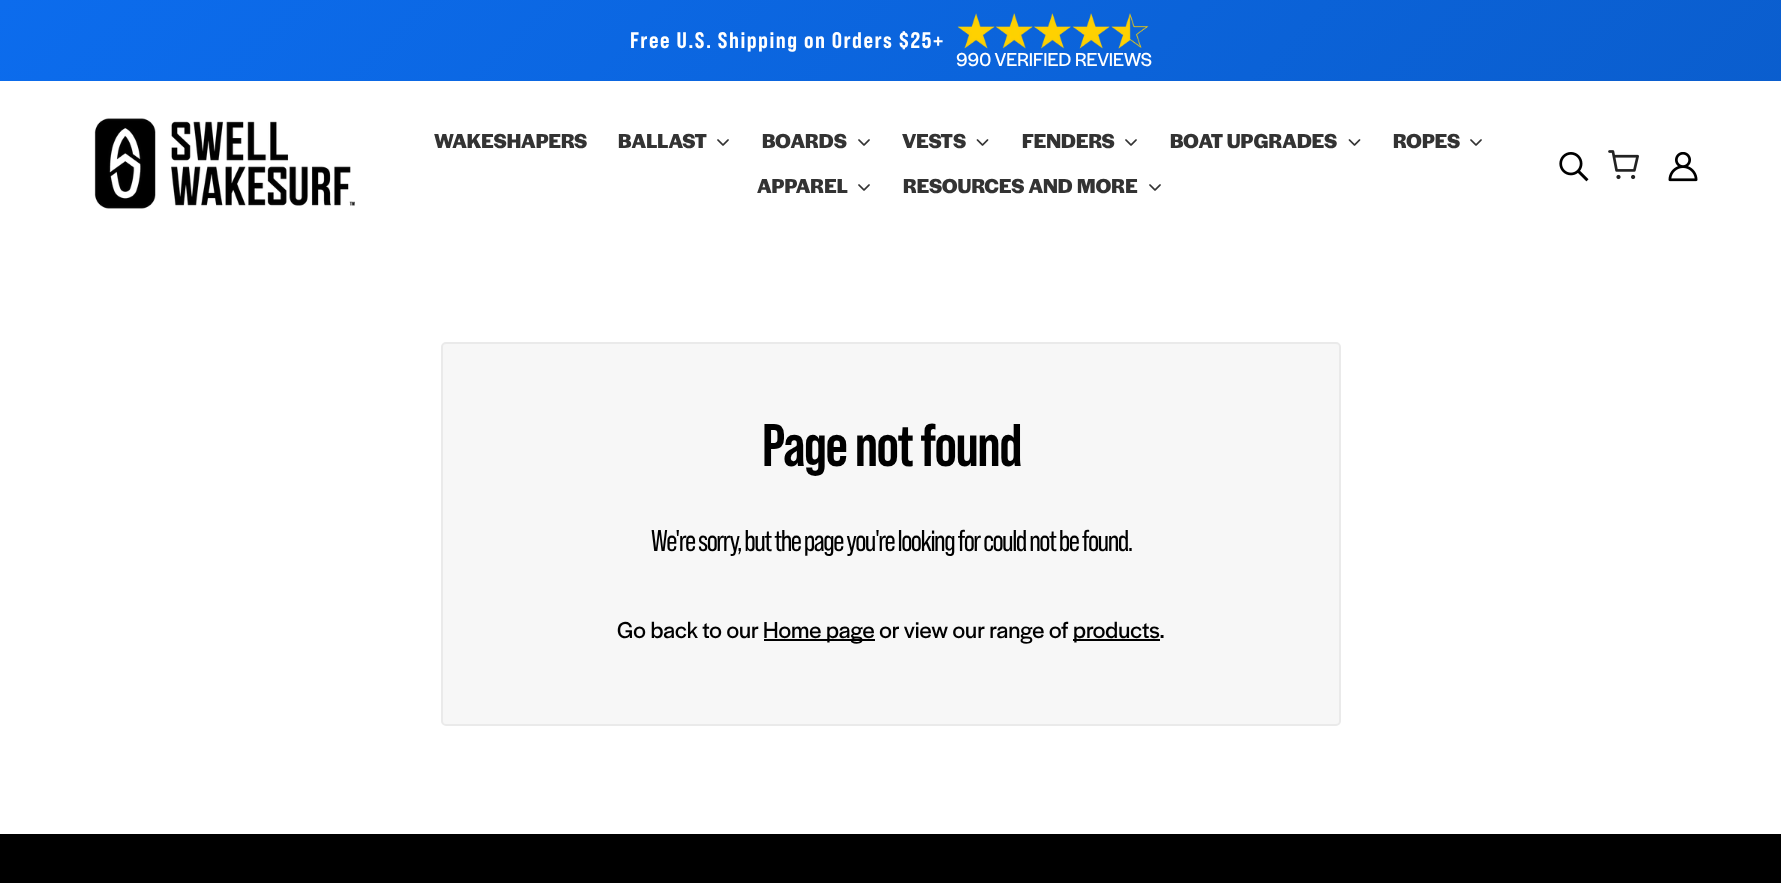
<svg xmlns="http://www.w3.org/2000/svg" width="1781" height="883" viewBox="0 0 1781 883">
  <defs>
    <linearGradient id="g1" gradientUnits="userSpaceOnUse" x1="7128" y1="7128" x2="0" y2="0"><stop offset="0" stop-color="#000"/><stop offset="1" stop-color="#0c6ced"/></linearGradient>
  </defs>
  <rect width="100%" height="100%" fill="#fff"/>
  <path d="M0 0h1781v81H0z" fill="url(#g1)"/>
  <image x="957" y="13" width="192" height="36" href="img/1.png"/>
  <image x="94" y="118" width="261" height="91" href="img/2.png"/>
  <image x="717" y="139" width="12" height="7" href="img/3.png"/>
  <image x="858" y="139" width="12" height="7" href="img/3.png"/>
  <image x="976" y="139" width="13" height="7" href="img/4.png"/>
  <image x="1125" y="139" width="12" height="7" href="img/3.png"/>
  <image x="1348" y="139" width="13" height="7" href="img/4.png"/>
  <image x="1470" y="139" width="12" height="7" href="img/3.png"/>
  <image x="858" y="184" width="12" height="7" href="img/3.png"/>
  <image x="1149" y="184" width="12" height="7" href="img/3.png"/>
  <image x="1559" y="152" width="30" height="30" href="img/5.png"/>
  <image x="1608" y="150" width="31" height="30" href="img/6.png"/>
  <image x="1668" y="152" width="30" height="30" href="img/7.png"/>
  <rect x="442" y="343" width="898" height="382" rx="4" fill="#f7f7f7" stroke="#eaeaea" stroke-width="2"/>
  <path d="M764 639h111v2H764z" fill="#000"/>
  <path d="M1073 639h87v2H1073z" fill="#000"/>
  <path d="M0 834h1781v49H0z" fill="#000"/>
  <text x="630" y="48" font-family="Bebas Neue" font-size="22.5" font-weight="800" letter-spacing="1.5" fill="#fff">Free U.S. Shipping on Orders $25+</text>
  <text x="956" y="66" font-family="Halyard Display" font-size="19.5" fill="#fff">990 VERIFIED REVIEWS</text>
  <g font-family="Halyard Display" font-size="21" font-weight="bold" fill="#333">
    <text x="434" y="148">WAKESHAPERS</text>
    <text x="618" y="148">BALLAST</text>
    <text x="762" y="148">BOARDS</text>
    <text x="902" y="148">VESTS</text>
    <text x="1022" y="148">FENDERS</text>
    <text x="1170" y="148">BOAT UPGRADES</text>
    <text x="1393" y="148">ROPES</text>
    <text x="757" y="193">APPAREL</text>
    <text x="903" y="193">RESOURCES AND MORE</text>
  </g>
  <text x="762" y="466" font-family="Bebas Neue" font-size="60" font-weight="bold" letter-spacing="-1.5" fill="#000">Page not found</text>
  <text x="651" y="551" font-family="Bebas Neue" font-size="30" letter-spacing="-1.5" fill="#000">We're sorry, but the page you're looking for could not be found.</text>
  <g font-family="Halyard Display" font-size="24" fill="#000">
    <text x="617" y="638">Go back to our</text>
    <text x="763" y="638">Home page or view our range of</text>
    <text x="1073" y="638">products.</text>
  </g>
</svg>
